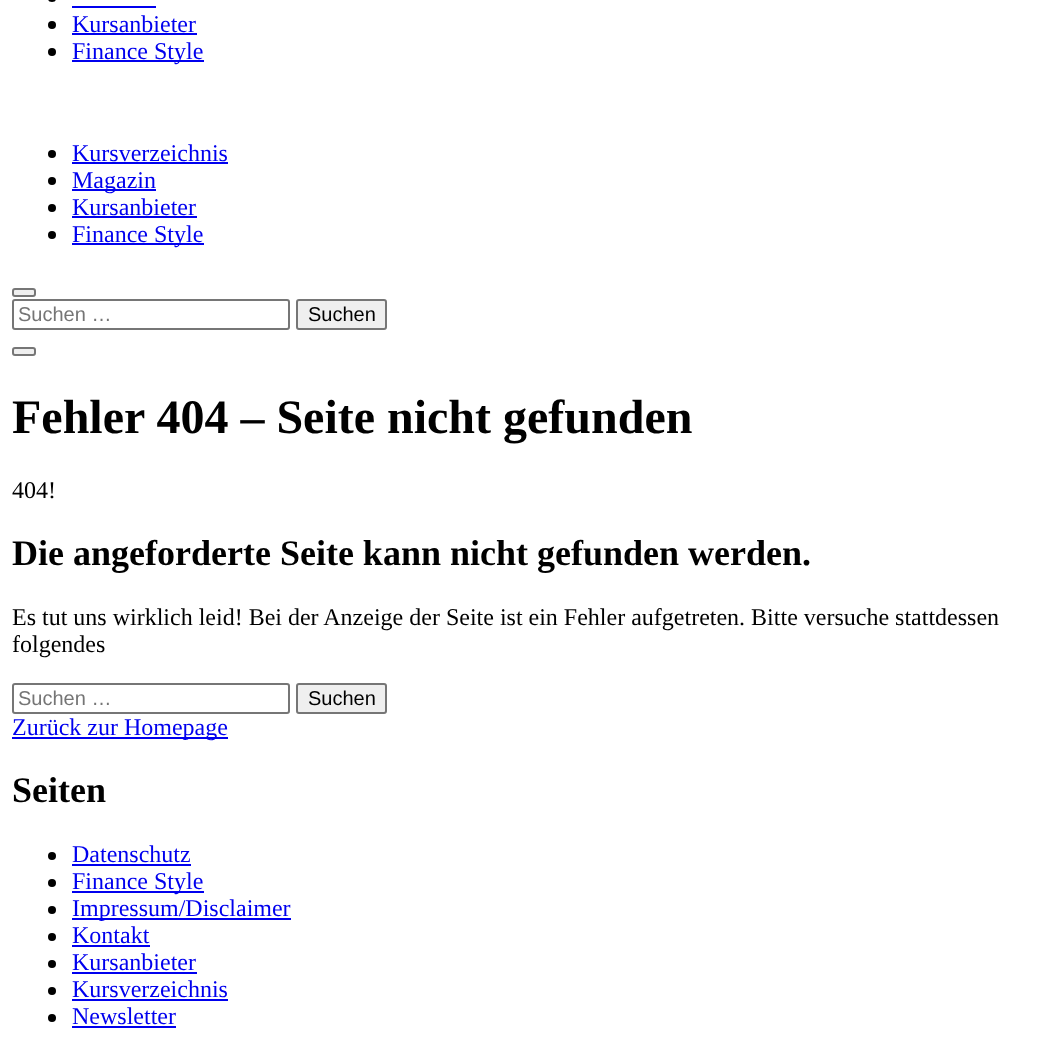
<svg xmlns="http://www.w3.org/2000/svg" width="1040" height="1060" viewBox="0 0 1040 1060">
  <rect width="100%" height="100%" fill="#fff"/>
  <rect x="48" y="-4" width="8" height="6" rx="4" fill="#000"/>
  <path d="M72 6h84v2H72z" fill="#00e"/>
  <circle cx="52" cy="25" r="4" fill="#000"/>
  <path d="M72 33h125v2H72z" fill="#00e"/>
  <circle cx="52" cy="52" r="4" fill="#000"/>
  <path d="M72 60h132v2H72z" fill="#00e"/>
  <circle cx="52" cy="154" r="4" fill="#000"/>
  <path d="M72 162h156v2H72z" fill="#00e"/>
  <circle cx="52" cy="181" r="4" fill="#000"/>
  <path d="M72 189h84v2H72z" fill="#00e"/>
  <circle cx="52" cy="208" r="4" fill="#000"/>
  <path d="M72 216h125v2H72z" fill="#00e"/>
  <circle cx="52" cy="235" r="4" fill="#000"/>
  <path d="M72 243h132v2H72z" fill="#00e"/>
  <rect x="13" y="289" width="22" height="7" rx="2" fill="#efefef" stroke="#767676" stroke-width="2"/>
  <rect x="13" y="300" width="276" height="29" rx="2" fill="none" stroke="#767676" stroke-width="2"/>
  <rect x="297" y="300" width="89" height="29" rx="2" fill="#efefef" stroke="#767676" stroke-width="2"/>
  <rect x="13" y="348" width="22" height="7" rx="2" fill="#efefef" stroke="#767676" stroke-width="2"/>
  <rect x="13" y="684" width="276" height="29" rx="2" fill="none" stroke="#767676" stroke-width="2"/>
  <rect x="297" y="684" width="89" height="29" rx="2" fill="#efefef" stroke="#767676" stroke-width="2"/>
  <path d="M12 737h216v2H12z" fill="#00e"/>
  <circle cx="52" cy="856" r="4" fill="#000"/>
  <path d="M72 864h119v2H72z" fill="#00e"/>
  <circle cx="52" cy="883" r="4" fill="#000"/>
  <path d="M72 891h132v2H72z" fill="#00e"/>
  <circle cx="52" cy="910" r="4" fill="#000"/>
  <path d="M72 918h219v2H72z" fill="#00e"/>
  <circle cx="52" cy="937" r="4" fill="#000"/>
  <path d="M72 945h78v2H72z" fill="#00e"/>
  <circle cx="52" cy="964" r="4" fill="#000"/>
  <path d="M72 972h125v2H72z" fill="#00e"/>
  <circle cx="52" cy="991" r="4" fill="#000"/>
  <path d="M72 999h156v2H72z" fill="#00e"/>
  <circle cx="52" cy="1018" r="4" fill="#000"/>
  <path d="M72 1026h104v2H72z" fill="#00e"/>
  <g font-family="Liberation Serif" font-size="24" fill="#00e">
    <text x="72" y="32">Kursanbieter</text>
    <text x="72" y="59">Finance Style</text>
    <text x="72" y="161">Kursverzeichnis</text>
    <text x="72" y="188">Magazin</text>
    <text x="72" y="215">Kursanbieter</text>
    <text x="72" y="242">Finance Style</text>
  </g>
  <text x="18" y="321" font-family="Liberation Sans" font-size="20" fill="#757575">Suchen …</text>
  <text x="308" y="321" font-family="Liberation Sans" font-size="20" fill="#000">Suchen</text>
  <text x="12" y="433" font-family="Liberation Serif" font-size="48" font-weight="bold" fill="#000">Fehler 404 – Seite nicht gefunden</text>
  <text x="12" y="498" font-family="Liberation Serif" font-size="24" fill="#000">404!</text>
  <text x="12" y="565" font-family="Liberation Serif" font-size="36" font-weight="bold" fill="#000">Die angeforderte Seite kann nicht gefunden werden.</text>
  <g font-family="Liberation Serif" font-size="24" fill="#000">
    <text x="12" y="625">Es tut uns wirklich leid! Bei der Anzeige der Seite ist ein Fehler aufgetreten. Bitte versuche stattdessen</text>
    <text x="12" y="652">folgendes</text>
  </g>
  <text x="18" y="705" font-family="Liberation Sans" font-size="20" fill="#757575">Suchen …</text>
  <text x="308" y="705" font-family="Liberation Sans" font-size="20" fill="#000">Suchen</text>
  <text x="12" y="735" font-family="Liberation Serif" font-size="24" fill="#00e">Zurück zur Homepage</text>
  <text x="12" y="802" font-family="Liberation Serif" font-size="36" font-weight="bold" fill="#000">Seiten</text>
  <g font-family="Liberation Serif" font-size="24" fill="#00e">
    <text x="72" y="862">Datenschutz</text>
    <text x="72" y="889">Finance Style</text>
    <text x="72" y="916">Impressum/Disclaimer</text>
    <text x="72" y="943">Kontakt</text>
    <text x="72" y="970">Kursanbieter</text>
    <text x="72" y="997">Kursverzeichnis</text>
    <text x="72" y="1024">Newsletter</text>
  </g>
</svg>
